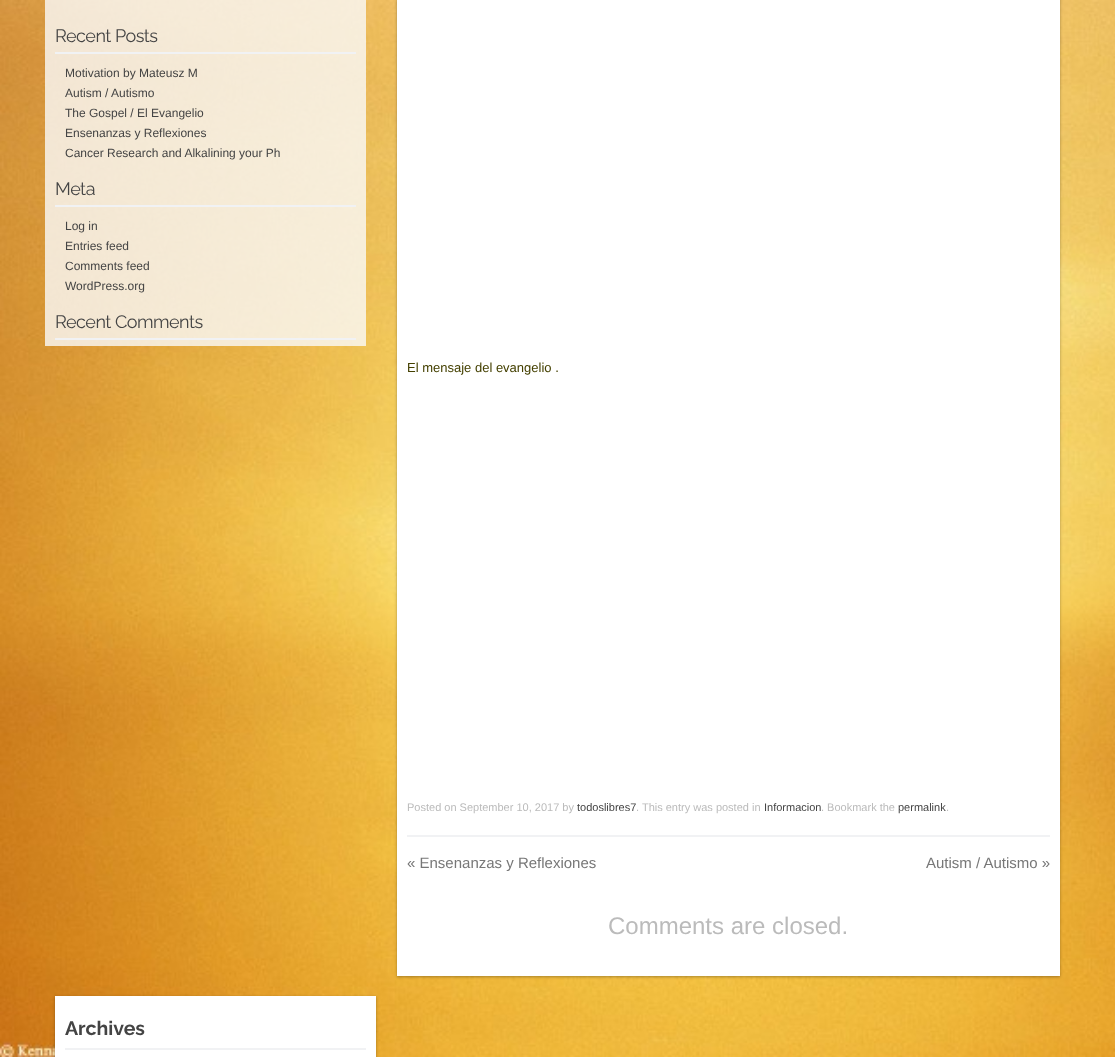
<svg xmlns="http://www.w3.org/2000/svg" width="1115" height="1057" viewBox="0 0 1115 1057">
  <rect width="100%" height="100%" fill="#fff"/>
  <image x="0" y="0" width="1115" height="1057" href="img/1.png"/>
  <path d="M45 0h321v299H45z" fill="#fafafacc"/>
  <path d="M55 52h301v2H55z" fill="#f1f2f4"/>
  <path d="M55 205h301v2H55z" fill="#f1f2f4"/>
  <path d="M45 299h321v47H45z" fill="#fafafacc"/>
  <path d="M55 338h301v2H55z" fill="#f1f2f4"/>
  <path d="M397 -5h663v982H397z" fill="#0000004d" filter="blur(1.5px)"/>
  <path d="M397 0h663v976H397z" fill="#fff"/>
  <path d="M407 835h643v2H407z" fill="#f1f2f4"/>
  <path d="M55 997h321v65H55z" fill="#0000004d" filter="blur(1.5px)"/>
  <path d="M55 996h321v61H55z" fill="#fff"/>
  <path d="M65 1048h301v2H65z" fill="#f1f2f4"/>
  <text x="55" y="42" font-family="Raleway" font-size="18" letter-spacing="-0.5" fill="#444">Recent Posts</text>
  <g font-family="Liberation Sans" font-size="12" fill="#444">
    <text x="65" y="77">Motivation by Mateusz M</text>
    <text x="65" y="97">Autism / Autismo</text>
    <text x="65" y="117">The Gospel / El Evangelio</text>
    <text x="65" y="137">Ensenanzas y Reflexiones</text>
    <text x="65" y="157">Cancer Research and Alkalining your Ph</text>
  </g>
  <text x="55" y="195" font-family="Raleway" font-size="18" letter-spacing="-0.5" fill="#444">Meta</text>
  <g font-family="Liberation Sans" font-size="12" fill="#444">
    <text x="65" y="230">Log in</text>
    <text x="65" y="250">Entries feed</text>
    <text x="65" y="270">Comments feed</text>
    <text x="65" y="290">WordPress.org</text>
  </g>
  <text x="55" y="328" font-family="Raleway" font-size="18" letter-spacing="-0.5" fill="#444">Recent Comments</text>
  <text x="407" y="372" font-family="Liberation Sans" font-size="13" fill="#444000">El mensaje del evangelio .</text>
  <text x="407" y="811" font-family="Liberation Sans" font-size="11" fill="#bbb">Posted on September 10, 2017 by</text>
  <text x="577" y="811" font-family="Liberation Sans" font-size="11" fill="#444">todoslibres7</text>
  <text x="636" y="811" font-family="Liberation Sans" font-size="11" fill="#bbb">. This entry was posted in</text>
  <text x="764" y="811" font-family="Liberation Sans" font-size="11" fill="#444">Informacion</text>
  <text x="821" y="811" font-family="Liberation Sans" font-size="11" fill="#bbb">. Bookmark the</text>
  <text x="898" y="811" font-family="Liberation Sans" font-size="11" fill="#444">permalink</text>
  <text x="946" y="811" font-family="Liberation Sans" font-size="11" fill="#bbb">.</text>
  <g font-family="Liberation Sans" font-size="15" fill="#777">
    <text x="407" y="868">« Ensenanzas y Reflexiones</text>
    <text x="926" y="868">Autism / Autismo »</text>
  </g>
  <text x="608" y="934" font-family="Liberation Sans" font-size="24" fill="#bbb">Comments are closed.</text>
  <text x="65" y="1035" font-family="Raleway" font-size="19.5" font-weight="bold" fill="#444">Archives</text>
</svg>
